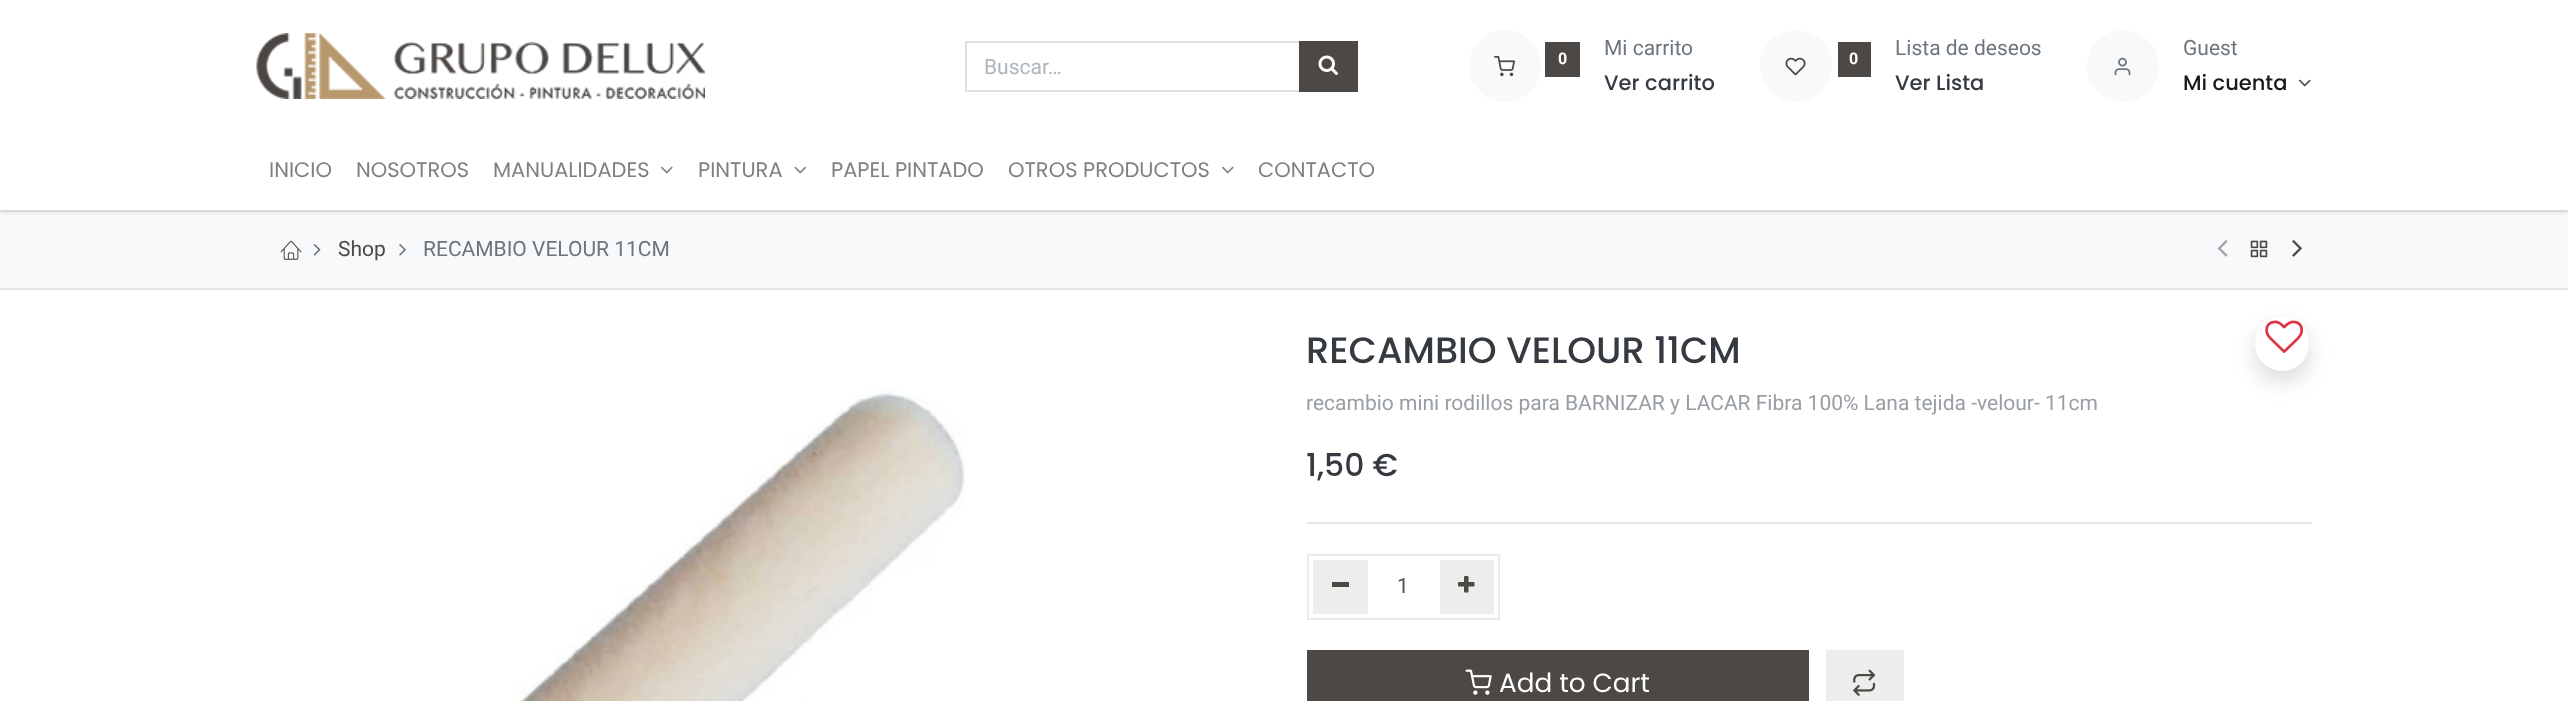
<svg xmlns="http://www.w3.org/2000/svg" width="2568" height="701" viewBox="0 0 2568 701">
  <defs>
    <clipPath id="clip1"><path d="M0 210h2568v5H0z"/></clipPath>
  </defs>
  <rect width="100%" height="100%" fill="#fff"/>
  <image x="256" y="33" width="449" height="66" href="img/1.png"/>
  <path d="M966 42h334v49H966z" fill="none" stroke="#dee2e6" stroke-width="2"/>
  <path d="M1299 41h59v51H1299z" fill="#4b4845"/>
  <image x="1318" y="55" width="20" height="20" href="img/2.png"/>
  <circle cx="1505" cy="66" r="36" fill="#f8f9fa"/>
  <image x="1494" y="56" width="21" height="21" href="img/3.png"/>
  <path d="M1545 42h35v35H1545z" fill="#4b4845"/>
  <circle cx="1796" cy="66" r="36" fill="#f8f9fa"/>
  <image x="1785" y="57" width="21" height="19" href="img/4.png"/>
  <path d="M1838 42h33v35H1838z" fill="#4b4845"/>
  <circle cx="2123" cy="66" r="36" fill="#f8f9fa"/>
  <image x="2114" y="57" width="17" height="19" href="img/5.png"/>
  <image x="2298" y="79" width="13" height="8" href="img/6.png"/>
  <path d="M0 212h2568v76H0z" fill="#f8f9fa"/>
  <path d="M0 210h2568v2H0z" fill="#e5e5e5"/>
  <g clip-path="url(#clip1)">
    <path d="M0 135h2568v78H0z" fill="#00000012" filter="blur(3px)"/>
  </g>
  <image x="661" y="166" width="12" height="8" href="img/7.png"/>
  <image x="794" y="166" width="12" height="8" href="img/8.png"/>
  <image x="1222" y="166" width="12" height="8" href="img/7.png"/>
  <path d="M0 288h2568v2H0z" fill="#e5e5e5"/>
  <image x="280" y="240" width="22" height="20" href="img/9.png"/>
  <image x="313" y="244" width="8" height="12" href="img/10.png"/>
  <image x="399" y="244" width="7" height="12" href="img/11.png"/>
  <image x="2217" y="240" width="11" height="17" href="img/12.png"/>
  <image x="2250" y="240" width="18" height="18" href="img/13.png"/>
  <image x="2292" y="240" width="10" height="17" href="img/14.png"/>
  <image x="516" y="388" width="451" height="313" href="img/15.png"/>
  <path d="M1307 522h1005v2H1307z" fill="#e6e6e6"/>
  <path d="M1308 555h191v64H1308z" fill="none" stroke="#e9ecef" stroke-width="2"/>
  <path d="M1313 560h55v54H1313z" fill="#ededec"/>
  <path d="M1332 582h17v5H1332z" fill="#4b4845"/>
  <path d="M1440 560h54v54H1440z" fill="#ededec"/>
  <image x="1458" y="576" width="17" height="17" href="img/16.png"/>
  <rect x="2255" y="327" width="54" height="54" rx="27" fill="#00000026" filter="blur(11px)"/>
  <circle cx="2282" cy="344" r="27" fill="#fff"/>
  <image x="2265" y="320" width="39" height="33" href="img/17.png"/>
  <path d="M1307 650h502v51H1307z" fill="#4b4845"/>
  <image x="1465" y="669" width="27" height="26" href="img/18.png"/>
  <path d="M1826 650h78v51H1826z" fill="#ededec"/>
  <image x="1853" y="669" width="23" height="27" href="img/19.png"/>
  <text x="984" y="74" font-family="Roboto" font-size="21" fill="#adb5bd">Buscar…</text>
  <text x="1558" y="64" font-family="Roboto" font-size="16" font-weight="bold" fill="#fff">0</text>
  <text x="1604" y="55" font-family="Roboto" font-size="21" fill="#6c757d">Mi carrito</text>
  <text x="1604" y="90" font-family="Poppins" font-size="21" font-weight="500" fill="#343a40">Ver carrito</text>
  <text x="1849" y="64" font-family="Roboto" font-size="16" font-weight="bold" fill="#fff">0</text>
  <text x="1895" y="55" font-family="Roboto" font-size="21" fill="#6c757d">Lista de deseos</text>
  <text x="1895" y="90" font-family="Poppins" font-size="21" font-weight="500" fill="#343a40">Ver Lista</text>
  <text x="2183" y="55" font-family="Roboto" font-size="21" fill="#6c757d">Guest</text>
  <text x="2183" y="90" font-family="Poppins" font-size="21" font-weight="500" fill="#1a1a19">Mi cuenta</text>
  <g font-family="Poppins" font-size="21" fill="#808080">
    <text x="269" y="177">INICIO</text>
    <text x="356" y="177">NOSOTROS</text>
    <text x="493" y="177">MANUALIDADES</text>
    <text x="698" y="177">PINTURA</text>
    <text x="831" y="177">PAPEL PINTADO</text>
    <text x="1008" y="177">OTROS PRODUCTOS</text>
    <text x="1258" y="177">CONTACTO</text>
  </g>
  <text x="338" y="256" font-family="Roboto" font-size="21" fill="#4b4845">Shop</text>
  <text x="423" y="256" font-family="Roboto" font-size="21" fill="#6c757d">RECAMBIO VELOUR 11CM</text>
  <text x="1306" y="363" font-family="Poppins" font-size="36.75" font-weight="500" fill="#343a40">RECAMBIO VELOUR 11CM</text>
  <text x="1306" y="410" font-family="Roboto" font-size="21" fill="#989ea4">recambio mini rodillos para BARNIZAR y LACAR Fibra 100% Lana tejida -velour- 11cm</text>
  <text x="1306" y="476" font-family="Poppins" font-size="31.5" font-weight="500" fill="#343a40">1,50 €</text>
  <text x="1397" y="593" font-family="Roboto" font-size="21" fill="#495057">1</text>
  <text x="1499" y="692" font-family="Poppins" font-size="26.25" fill="#fff">Add to Cart</text>
</svg>
